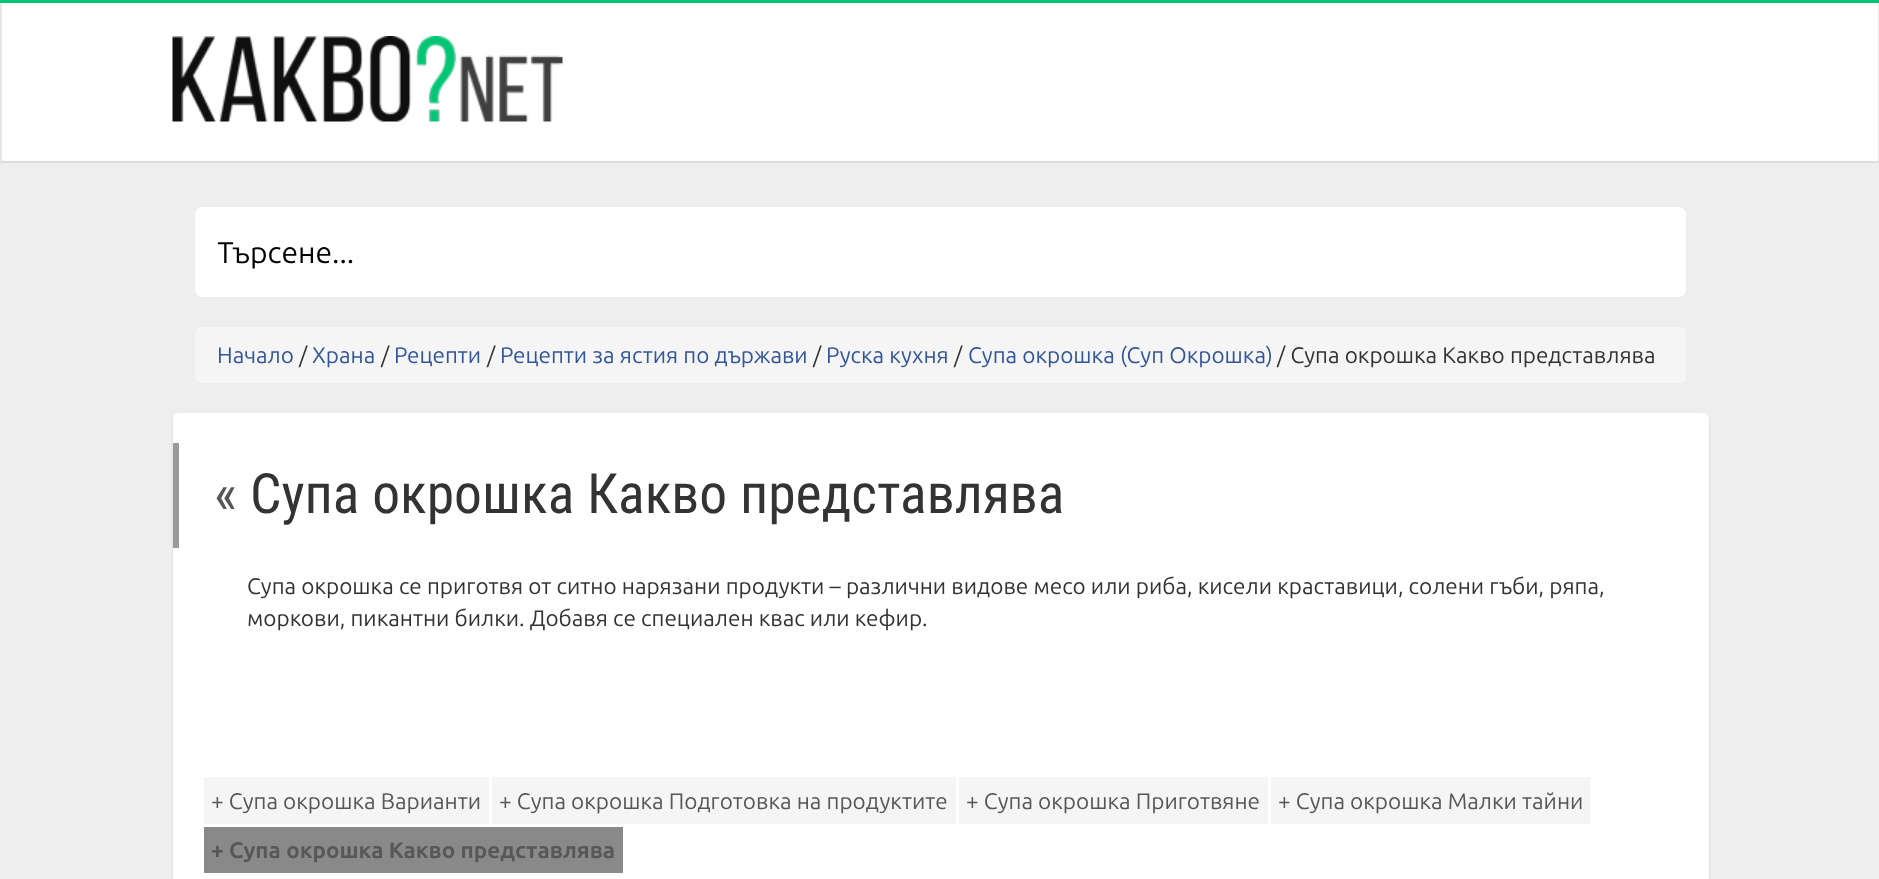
<svg xmlns="http://www.w3.org/2000/svg" width="1879" height="879" viewBox="0 0 1879 879">
  <defs>
    <clipPath id="clip1"><path d="M218 236h1459v34H218z"/></clipPath>
  </defs>
  <rect width="100%" height="100%" fill="#eee"/>
  <path d="M1878 0h1v162H1878z" fill="#e7e7e7"/>
  <path d="M0 161h1879v2H0z" fill="#ddd"/>
  <path d="M0 0h2v162H0z" fill="#e7e7e7"/>
  <path d="M0 0h1879v3H0z" fill="#04c475"/>
  <path d="M2 3h1876v158H2z" fill="#fff"/>
  <image x="172" y="36" width="391" height="86" href="img/1.png"/>
  <rect x="195" y="207" width="1491" height="90" rx="8" fill="#fff"/>
  <rect x="195" y="327" width="1491" height="56" rx="6" fill="#f5f5f5"/>
  <rect x="173" y="414" width="1536" height="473" rx="5" fill="#b4b4b480" filter="blur(1px)"/>
  <rect x="173" y="413" width="1536" height="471" rx="5" fill="#fff"/>
  <path d="M173 443h6v105H173z" fill="#9a9a9a"/>
  <path d="M204 777h285v47H204z" fill="#f5f5f5"/>
  <path d="M492 777h464v47H492z" fill="#f5f5f5"/>
  <path d="M959 777h309v47H959z" fill="#f5f5f5"/>
  <path d="M1271 777h319v47H1271z" fill="#f5f5f5"/>
  <path d="M204 827h419v46H204z" fill="#898989"/>
  <g clip-path="url(#clip1)">
    <text x="217" y="263" font-family="Ubuntu" font-size="30" fill="#000">Търсене...</text>
  </g>
  <text x="217" y="363" font-family="Ubuntu" font-size="22.5" fill="#359">Начало</text>
  <text x="299" y="363" font-family="Ubuntu" font-size="22.5" fill="#333">/</text>
  <text x="312" y="363" font-family="Ubuntu" font-size="22.5" fill="#359">Храна</text>
  <text x="381" y="363" font-family="Ubuntu" font-size="22.5" fill="#333">/</text>
  <text x="394" y="363" font-family="Ubuntu" font-size="22.5" fill="#359">Рецепти</text>
  <text x="487" y="363" font-family="Ubuntu" font-size="22.5" fill="#333">/</text>
  <text x="500" y="363" font-family="Ubuntu" font-size="22.5" fill="#359">Рецепти за ястия по държави</text>
  <text x="813" y="363" font-family="Ubuntu" font-size="22.5" fill="#333">/</text>
  <text x="826" y="363" font-family="Ubuntu" font-size="22.5" fill="#359">Руска кухня</text>
  <text x="954" y="363" font-family="Ubuntu" font-size="22.5" fill="#333">/</text>
  <text x="968" y="363" font-family="Ubuntu" font-size="22.5" fill="#359">Супа окрошка (Суп Окрошка)</text>
  <text x="1277" y="363" font-family="Ubuntu" font-size="22.5" fill="#333">/ Супа окрошка Какво представлява</text>
  <text x="214" y="513" font-family="Roboto Condensed" font-size="55.5" fill="#575757">«</text>
  <text x="250" y="513" font-family="Roboto Condensed" font-size="55.5" fill="#333">Супа окрошка Какво представлява</text>
  <g font-family="Ubuntu" font-size="22.5" fill="#333">
    <text x="247" y="594">Супа окрошка се приготвя от ситно нарязани продукти – различни видове месо или риба, кисели краставици, солени гъби, ряпа,</text>
    <text x="247" y="626">моркови, пикантни билки. Добавя се специален квас или кефир.</text>
  </g>
  <g font-family="Ubuntu" font-size="22.5" fill="#575757">
    <text x="211" y="809">+ Супа окрошка Варианти</text>
    <text x="499" y="809">+ Супа окрошка Подготовка на продуктите</text>
    <text x="966" y="809">+ Супа окрошка Приготвяне</text>
    <text x="1278" y="809">+ Супа окрошка Малки тайни</text>
  </g>
  <text x="211" y="858" font-family="Ubuntu" font-size="22.5" font-weight="bold" fill="#575757">+ Супа окрошка Какво представлява</text>
</svg>
